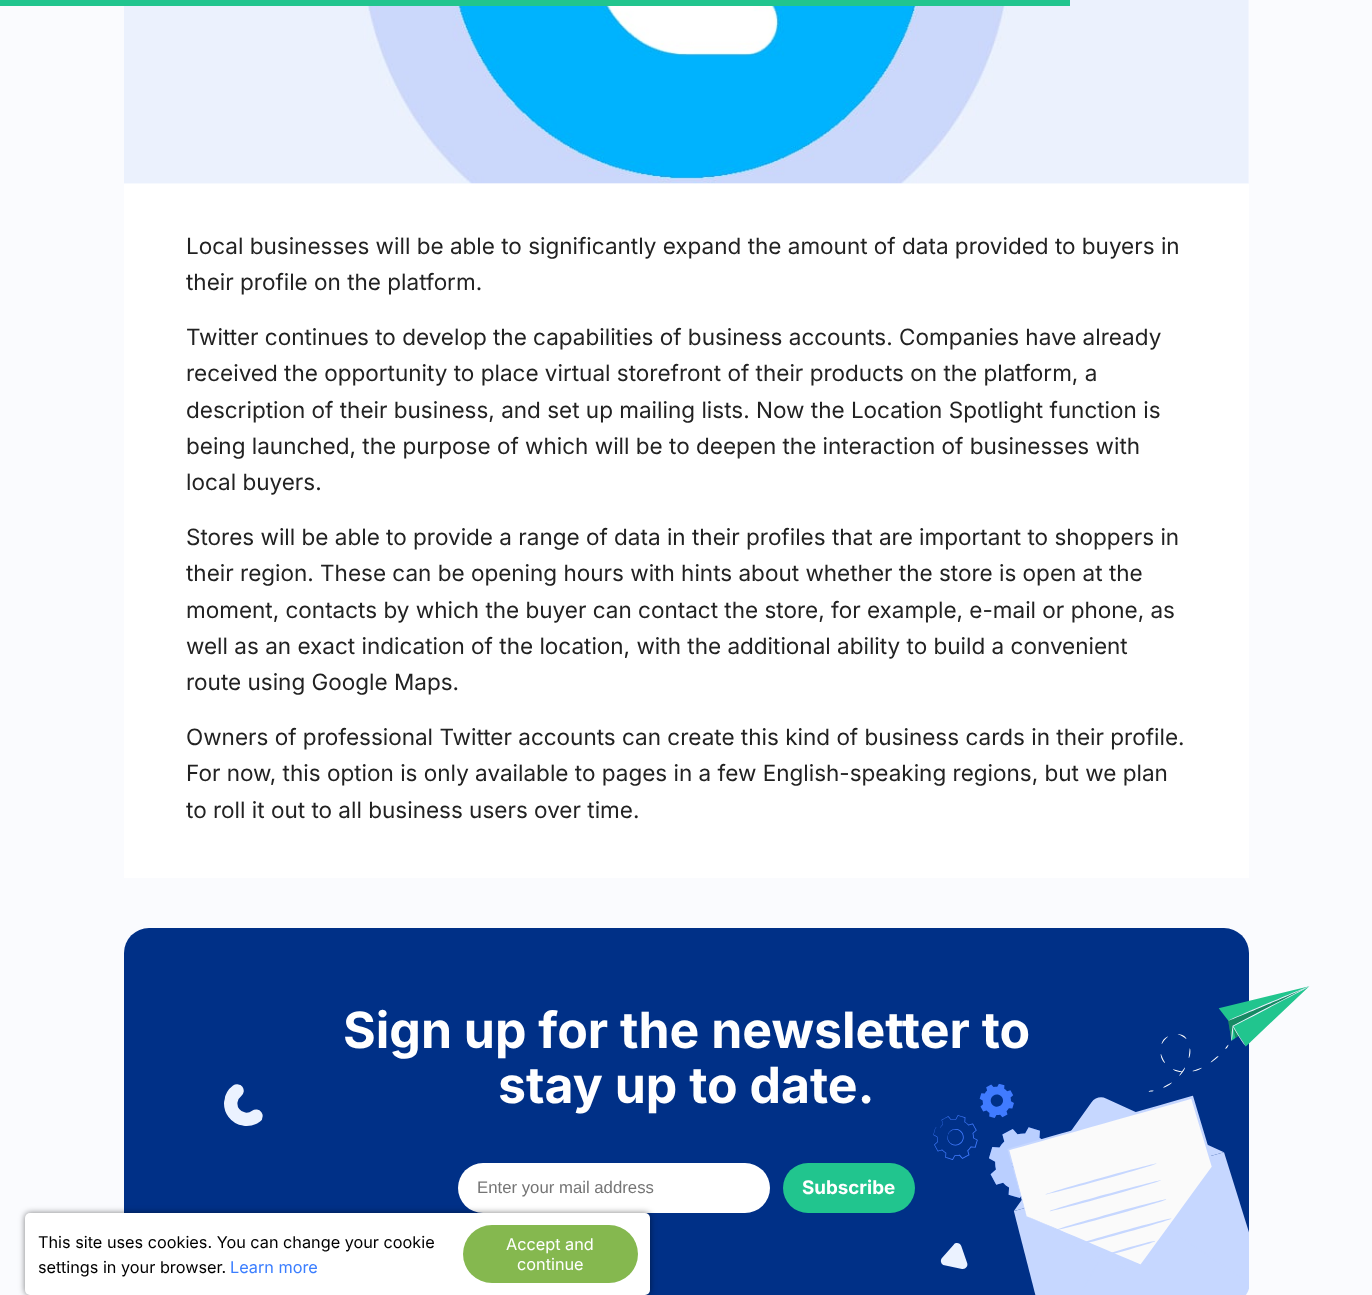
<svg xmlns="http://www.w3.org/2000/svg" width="1372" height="1295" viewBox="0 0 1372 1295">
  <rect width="100%" height="100%" fill="#fafbfe"/>
  <image x="124" y="0" width="1125" height="184" href="img/1.png"/>
  <path d="M0 0h1070v6H0z" fill="#21c58e"/>
  <path d="M124 184h1125v694H124z" fill="#fff"/>
  <rect x="124" y="928" width="1125" height="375" rx="25" fill="#003087"/>
  <image x="224" y="1084" width="39" height="42" href="img/2.png"/>
  <rect x="458" y="1163" width="312" height="50" rx="25" fill="#fff"/>
  <rect x="783" y="1163" width="132" height="50" rx="25" fill="#21c58e"/>
  <image x="933" y="986" width="377" height="309" href="img/3.png"/>
  <rect x="25" y="1213" width="625" height="82" rx="5" fill="#00000080" filter="blur(3px)"/>
  <rect x="25" y="1213" width="625" height="82" rx="5" fill="#fff"/>
  <rect x="463" y="1225" width="175" height="58" rx="29" fill="#85b84f"/>
  <g font-family="Inter" font-size="22.5" fill="#222">
    <text x="186" y="254">Local businesses will be able to significantly expand the amount of data provided to buyers in</text>
    <text x="186" y="290">their profile on the platform.</text>
    <text x="186" y="345">Twitter continues to develop the capabilities of business accounts. Companies have already</text>
    <text x="186" y="381">received the opportunity to place virtual storefront of their products on the platform, a</text>
    <text x="186" y="418">description of their business, and set up mailing lists. Now the Location Spotlight function is</text>
    <text x="186" y="454">being launched, the purpose of which will be to deepen the interaction of businesses with</text>
    <text x="186" y="490">local buyers.</text>
    <text x="186" y="545">Stores will be able to provide a range of data in their profiles that are important to shoppers in</text>
    <text x="186" y="581">their region. These can be opening hours with hints about whether the store is open at the</text>
    <text x="186" y="618">moment, contacts by which the buyer can contact the store, for example, e-mail or phone, as</text>
    <text x="186" y="654">well as an exact indication of the location, with the additional ability to build a convenient</text>
    <text x="186" y="690">route using Google Maps.</text>
    <text x="186" y="745">Owners of professional Twitter accounts can create this kind of business cards in their profile.</text>
    <text x="186" y="781">For now, this option is only available to pages in a few English-speaking regions, but we plan</text>
    <text x="186" y="818">to roll it out to all business users over time.</text>
  </g>
  <g font-family="Inter" font-size="50" font-weight="bold" fill="#fff">
    <text x="343" y="1048">Sign up for the newsletter to</text>
    <text x="498" y="1103">stay up to date.</text>
  </g>
  <text x="477" y="1193" font-family="Liberation Sans" font-size="16.75" fill="#757575">Enter your mail address</text>
  <text x="802" y="1194" font-family="Inter" font-size="18.75" font-weight="bold" fill="#fff">Subscribe</text>
  <g font-family="Inter" font-size="16.25" fill="#000">
    <text x="38" y="1248">This site uses cookies. You can change your cookie</text>
    <text x="38" y="1273">settings in your browser.</text>
  </g>
  <text x="230" y="1273" font-family="Inter" font-size="16.25" fill="#3b7eff">Learn more</text>
  <g font-family="Inter" font-size="16.25" fill="#fff">
    <text x="506" y="1250">Accept and</text>
    <text x="517" y="1270">continue</text>
  </g>
</svg>
